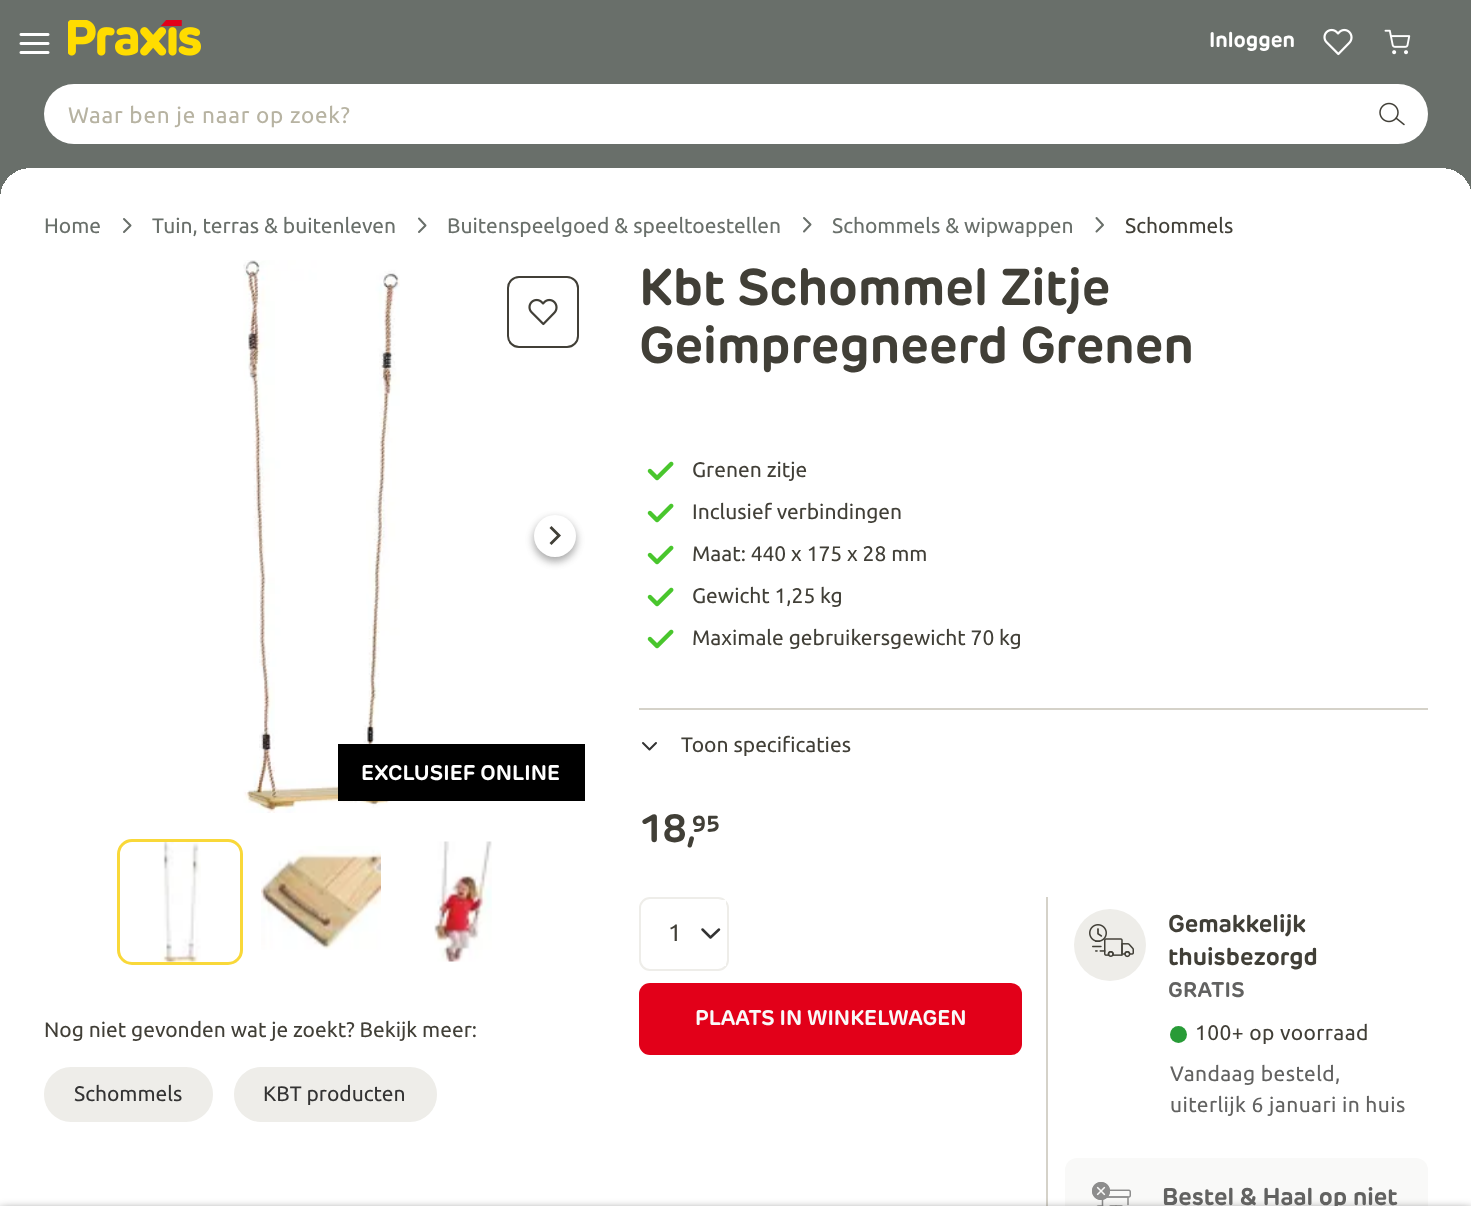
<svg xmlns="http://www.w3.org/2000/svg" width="1471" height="1206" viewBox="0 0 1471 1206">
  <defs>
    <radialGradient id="g1" gradientUnits="userSpaceOnUse" cx="30" cy="198" r="42"><stop offset="0.71" stop-color="#fff"/><stop offset="0.71" stop-color="#696f6a"/></radialGradient>
    <radialGradient id="g2" gradientUnits="userSpaceOnUse" cx="1442" cy="198" r="42"><stop offset="0.71" stop-color="#fff"/><stop offset="0.71" stop-color="#696f6a"/></radialGradient>
  </defs>
  <rect width="100%" height="100%" fill="#fff"/>
  <path d="M0 0h1471v168H0z" fill="#696f6a"/>
  <image x="19" y="33" width="31" height="21" href="img/1.png"/>
  <image x="68" y="20" width="133" height="36" href="img/2.png"/>
  <image x="1323" y="28" width="30" height="28" href="img/3.png"/>
  <image x="1384" y="29" width="27" height="26" href="img/4.png"/>
  <rect x="44" y="84" width="1384" height="60" rx="30" fill="#fff"/>
  <image x="1379" y="102" width="26" height="24" href="img/5.png"/>
  <path d="M0 168h26v26H0z" fill="url(#g1)"/>
  <path d="M1446 168h25v21H1446z" fill="url(#g2)"/>
  <path d="M124 232L130.5 225.5L124 219" fill="none" stroke="#696f6a" stroke-width="2" stroke-linecap="round" stroke-linejoin="round"/>
  <path d="M419 232L425.5 225.5L419 218.5" fill="none" stroke="#696f6a" stroke-width="2" stroke-linecap="round" stroke-linejoin="round"/>
  <path d="M804 231.5L810.5 224.5L804 218" fill="none" stroke="#696f6a" stroke-width="2" stroke-linecap="round" stroke-linejoin="round"/>
  <path d="M1096.5 231.5L1103 225L1096.5 218" fill="none" stroke="#696f6a" stroke-width="2" stroke-linecap="round" stroke-linejoin="round"/>
  <image x="243" y="260" width="157" height="553" href="img/6.png"/>
  <rect x="534" y="519" width="42" height="42" rx="21" fill="#0000003b" filter="blur(4.5px)"/>
  <rect x="534" y="519" width="42" height="42" rx="21" fill="#00000029" filter="blur(4.5px)"/>
  <circle cx="555" cy="536" r="21" fill="#fff"/>
  <path d="M557 535.5L549.5 528L551.5 526L561 535.5L551.5 545L549.5 543Z" fill="#413f37"/>
  <image x="160" y="842" width="41" height="120" href="img/7.png"/>
  <rect x="118.5" y="840.5" width="123" height="123" rx="13.5" fill="none" stroke="#f9d839" stroke-width="3"/>
  <image x="261" y="846" width="120" height="104" href="img/8.png"/>
  <image x="434" y="841" width="58" height="121" href="img/9.png"/>
  <rect x="508" y="277" width="70" height="70" rx="11" fill="none" stroke="#413f37" stroke-width="2"/>
  <image x="528" y="298" width="30" height="28" href="img/10.png"/>
  <path d="M338 744h247v57H338z" fill="#000"/>
  <image x="647" y="461" width="27" height="20" href="img/11.png"/>
  <image x="647" y="503" width="27" height="20" href="img/11.png"/>
  <image x="647" y="545" width="27" height="20" href="img/11.png"/>
  <image x="647" y="587" width="27" height="20" href="img/11.png"/>
  <image x="647" y="629" width="27" height="20" href="img/11.png"/>
  <path d="M639 708h789v2H639z" fill="#d5d2c9"/>
  <path d="M643 743L649.5 749.5L656 743" fill="none" stroke="#333" stroke-width="2" stroke-linecap="round" stroke-linejoin="round"/>
  <rect x="640" y="898" width="88" height="72" rx="10" fill="none" stroke="#eeede9" stroke-width="2"/>
  <path d="M722 900h4v66H722z" fill="#fff"/>
  <path d="M702.5 929.5L710.5 937.5L719 929.5" fill="none" stroke="#333" stroke-width="2.5" stroke-linecap="round" stroke-linejoin="round"/>
  <rect x="639" y="983" width="383" height="72" rx="11" fill="#e20019"/>
  <path d="M1046 897h2v309H1046z" fill="#d5d2c9"/>
  <circle cx="1110" cy="945" r="36" fill="#eeede9"/>
  <image x="1089" y="924" width="45" height="34" href="img/12.png"/>
  <circle cx="1178.5" cy="1034.5" r="8.5" fill="#289b37"/>
  <rect x="1065" y="1158" width="363" height="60" rx="12" fill="#f9f9f8"/>
  <image x="1092" y="1182" width="39" height="24" href="img/13.png"/>
  <path d="M0 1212h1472v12H0z" fill="#000" filter="blur(6px)"/>
  <rect x="44" y="1067" width="169" height="55" rx="27" fill="#eeede9"/>
  <rect x="234" y="1067" width="203" height="55" rx="27" fill="#eeede9"/>
  <text x="1209" y="47" font-family="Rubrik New" font-size="21" font-weight="bold" fill="#fff">Inloggen</text>
  <text x="68" y="123" font-family="Ubuntu" font-size="22.5" letter-spacing="0.75" fill="#b7b3a2">Waar ben je naar op zoek?</text>
  <g font-family="Ubuntu" font-size="21" fill="#696f6a">
    <text x="44" y="233">Home</text>
    <text x="152" y="233">Tuin, terras &amp; buitenleven</text>
    <text x="447" y="233">Buitenspeelgoed &amp; speeltoestellen</text>
    <text x="832" y="233">Schommels &amp; wipwappen</text>
  </g>
  <text x="1125" y="233" font-family="Ubuntu" font-size="21" fill="#413f37">Schommels</text>
  <g font-family="Rubrik New" font-size="51" font-weight="bold" fill="#413f37">
    <text x="639" y="305">Kbt Schommel Zitje</text>
    <text x="639" y="363">Geimpregneerd Grenen</text>
  </g>
  <text x="361" y="780" font-family="Rubrik New" font-size="21" font-weight="bold" letter-spacing="0.1" fill="#fff">EXCLUSIEF ONLINE</text>
  <g font-family="Ubuntu" font-size="21" fill="#413f37">
    <text x="692" y="477">Grenen zitje</text>
    <text x="692" y="519">Inclusief verbindingen</text>
    <text x="692" y="561">Maat: 440 x 175 x 28 mm</text>
    <text x="692" y="603">Gewicht 1,25 kg</text>
    <text x="692" y="645">Maximale gebruikersgewicht 70 kg</text>
    <text x="681" y="752">Toon specificaties</text>
  </g>
  <text x="639" y="842" font-family="Rubrik New" font-size="39" font-weight="bold" fill="#413f37">18,</text>
  <text x="692" y="832" font-family="Rubrik New" font-size="23" font-weight="bold" fill="#413f37">95</text>
  <text x="668" y="941" font-family="Ubuntu" font-size="24" fill="#413f37">1</text>
  <text x="695" y="1025" font-family="Rubrik New" font-size="21" font-weight="bold" fill="#f9f9f8">PLAATS IN WINKELWAGEN</text>
  <g font-family="Rubrik New" font-size="24" font-weight="bold" fill="#413f37">
    <text x="1168" y="932">Gemakkelijk</text>
    <text x="1168" y="965">thuisbezorgd</text>
  </g>
  <text x="1168" y="997" font-family="Rubrik New" font-size="21" font-weight="bold" letter-spacing="0.4" fill="#626261">GRATIS</text>
  <text x="1195" y="1040" font-family="Ubuntu" font-size="21" letter-spacing="0.4" fill="#413f37">100+ op voorraad</text>
  <g font-family="Ubuntu" font-size="21" letter-spacing="0.4" fill="#626261">
    <text x="1170" y="1081">Vandaag besteld,</text>
    <text x="1170" y="1112">uiterlijk 6 januari in huis</text>
  </g>
  <text x="1162" y="1205" font-family="Rubrik New" font-size="24" font-weight="bold" fill="#626261">Bestel &amp; Haal op niet</text>
  <text x="44" y="1037" font-family="Ubuntu" font-size="21" fill="#413f37">Nog niet gevonden wat je zoekt? Bekijk meer:</text>
  <g font-family="Ubuntu" font-size="21" fill="#333">
    <text x="74" y="1101">Schommels</text>
    <text x="263" y="1101">KBT producten</text>
  </g>
</svg>
